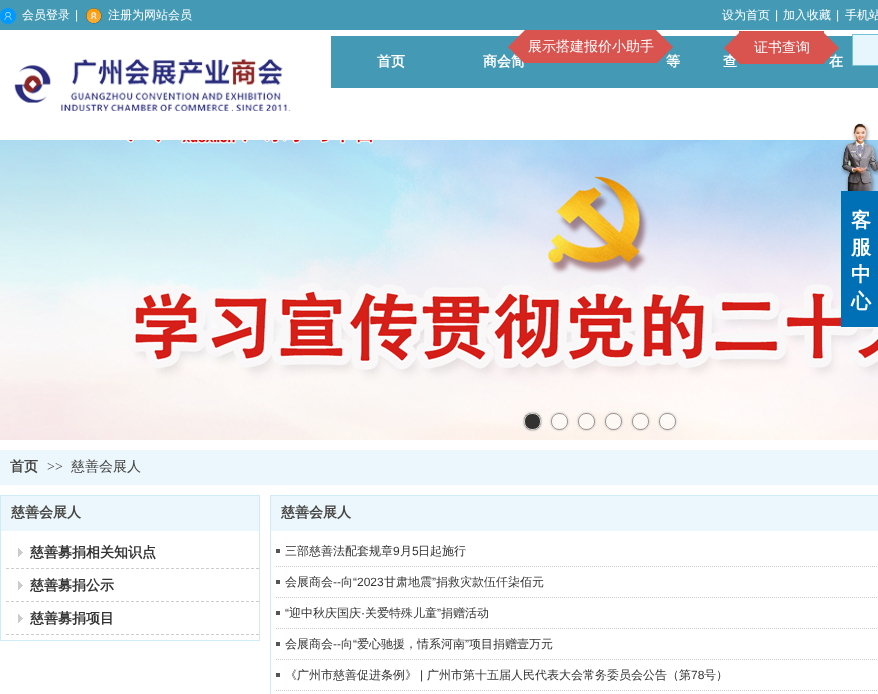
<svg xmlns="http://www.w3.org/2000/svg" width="878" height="694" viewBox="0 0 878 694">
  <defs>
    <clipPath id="clip1"><path d="M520 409H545V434H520ZM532 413H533C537.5 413 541 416.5 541 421V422C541 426.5 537.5 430 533 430H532C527.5 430 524 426.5 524 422V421C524 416.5 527.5 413 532 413Z" clip-rule="evenodd"/></clipPath>
    <clipPath id="clip2"><path d="M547 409H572V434H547ZM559 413H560C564.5 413 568 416.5 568 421V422C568 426.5 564.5 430 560 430H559C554.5 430 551 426.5 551 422V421C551 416.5 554.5 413 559 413Z" clip-rule="evenodd"/></clipPath>
    <clipPath id="clip3"><path d="M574 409H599V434H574ZM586 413H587C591.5 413 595 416.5 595 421V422C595 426.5 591.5 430 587 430H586C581.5 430 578 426.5 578 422V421C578 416.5 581.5 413 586 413Z" clip-rule="evenodd"/></clipPath>
    <clipPath id="clip4"><path d="M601 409H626V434H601ZM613 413H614C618.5 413 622 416.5 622 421V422C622 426.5 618.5 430 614 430H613C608.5 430 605 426.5 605 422V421C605 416.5 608.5 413 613 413Z" clip-rule="evenodd"/></clipPath>
    <clipPath id="clip5"><path d="M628 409H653V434H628ZM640 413H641C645.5 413 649 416.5 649 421V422C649 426.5 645.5 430 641 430H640C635.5 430 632 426.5 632 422V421C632 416.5 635.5 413 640 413Z" clip-rule="evenodd"/></clipPath>
    <clipPath id="clip6"><path d="M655 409H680V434H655ZM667 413H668C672.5 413 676 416.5 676 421V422C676 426.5 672.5 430 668 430H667C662.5 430 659 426.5 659 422V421C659 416.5 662.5 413 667 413Z" clip-rule="evenodd"/></clipPath>
    <clipPath id="clip7"><path d="M508 30h165v33H508z"/></clipPath>
    <clipPath id="clip8"><path d="M724 31h115v33H724z"/></clipPath>
    <clipPath id="clip9"><path d="M6 536h253v33H6z"/></clipPath>
    <clipPath id="clip10"><path d="M6 569h253v33H6z"/></clipPath>
    <clipPath id="clip11"><path d="M6 602h253v33H6z"/></clipPath>
  </defs>
  <rect width="100%" height="100%" fill="#fff"/>
  <path d="M0 0h878v30H0z" fill="#449ab5"/>
  <image x="0" y="8" width="16" height="16" href="img/1.png"/>
  <image x="86" y="8" width="16" height="16" href="img/2.png"/>
  <path d="M331 36h547v52H331z" fill="#4499b5"/>
  <path d="M852.5 34.5h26v31H852.5z" fill="#e7f6fd" stroke="#72c1d8"/>
  <image x="0" y="140" width="878" height="300" href="img/3.png"/>
  <g clip-path="url(#clip1)">
    <rect x="524" y="413" width="17" height="17" rx="8" fill="#0000007a" filter="blur(1px)"/>
  </g>
  <rect x="524" y="413" width="17" height="17" rx="8" fill="#000000cc"/>
  <rect x="524.5" y="413.5" width="16" height="16" rx="7.5" fill="none" stroke="#ffffffcc"/>
  <g clip-path="url(#clip2)">
    <rect x="551" y="413" width="17" height="17" rx="8" fill="#0000003d" filter="blur(1px)"/>
  </g>
  <rect x="551" y="413" width="17" height="17" rx="8" fill="#ffffff66"/>
  <rect x="551.5" y="413.5" width="16" height="16" rx="7.5" fill="none" stroke="#00000066"/>
  <g clip-path="url(#clip3)">
    <rect x="578" y="413" width="17" height="17" rx="8" fill="#0000003d" filter="blur(1px)"/>
  </g>
  <rect x="578" y="413" width="17" height="17" rx="8" fill="#ffffff66"/>
  <rect x="578.5" y="413.5" width="16" height="16" rx="7.5" fill="none" stroke="#00000066"/>
  <g clip-path="url(#clip4)">
    <rect x="605" y="413" width="17" height="17" rx="8" fill="#0000003d" filter="blur(1px)"/>
  </g>
  <rect x="605" y="413" width="17" height="17" rx="8" fill="#ffffff66"/>
  <rect x="605.5" y="413.5" width="16" height="16" rx="7.5" fill="none" stroke="#00000066"/>
  <g clip-path="url(#clip5)">
    <rect x="632" y="413" width="17" height="17" rx="8" fill="#0000003d" filter="blur(1px)"/>
  </g>
  <rect x="632" y="413" width="17" height="17" rx="8" fill="#ffffff66"/>
  <rect x="632.5" y="413.5" width="16" height="16" rx="7.5" fill="none" stroke="#00000066"/>
  <g clip-path="url(#clip6)">
    <rect x="659" y="413" width="17" height="17" rx="8" fill="#0000003d" filter="blur(1px)"/>
  </g>
  <rect x="659" y="413" width="17" height="17" rx="8" fill="#ffffff66"/>
  <rect x="659.5" y="413.5" width="16" height="16" rx="7.5" fill="none" stroke="#00000066"/>
  <g clip-path="url(#clip7)">
    <path d="M608-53V47H508Z" fill="#d9534f"/>
    <path d="M573 47V-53L673 47Z" fill="#d9534f"/>
  </g>
  <g clip-path="url(#clip8)">
    <path d="M824-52V48H724Z" fill="#d9534f"/>
    <path d="M739 48V-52L839 48Z" fill="#d9534f"/>
  </g>
  <image x="14" y="59" width="277" height="52" href="img/4.png"/>
  <image x="841" y="123" width="37" height="68" href="img/5.png"/>
  <path d="M841 191h37v136H841z" fill="#0070b6"/>
  <path d="M0 450h878v35H0z" fill="#ecf7fd"/>
  <path d="M0.5 495.5h259v145H0.5z" fill="none" stroke="#cfebf6"/>
  <path d="M1 496h258v35H1z" fill="#ecf7fd"/>
  <g clip-path="url(#clip9)">
    <path d="M6 568.5H264" fill="none" stroke="#ccc" stroke-dasharray="3 2"/>
  </g>
  <image x="18" y="548" width="5" height="9" href="img/6.png"/>
  <g clip-path="url(#clip10)">
    <path d="M6 601.5H264" fill="none" stroke="#ccc" stroke-dasharray="3 2"/>
  </g>
  <image x="18" y="581" width="5" height="9" href="img/6.png"/>
  <g clip-path="url(#clip11)">
    <path d="M6 634.5H264" fill="none" stroke="#ccc" stroke-dasharray="3 2"/>
  </g>
  <image x="18" y="614" width="5" height="9" href="img/6.png"/>
  <path d="M270.5 495.5h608v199H270.5z" fill="none" stroke="#cfebf6"/>
  <path d="M271 496h607v35H271z" fill="#ecf7fd"/>
  <path d="M276 566.5H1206" fill="none" stroke="#ccc" stroke-dasharray="1 1"/>
  <path d="M276 549h4v4H276z" fill="#555"/>
  <path d="M276 597.5H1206" fill="none" stroke="#ccc" stroke-dasharray="1 1"/>
  <path d="M276 580h4v4H276z" fill="#555"/>
  <path d="M276 628.5H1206" fill="none" stroke="#ccc" stroke-dasharray="1 1"/>
  <path d="M276 611h4v4H276z" fill="#555"/>
  <path d="M276 659.5H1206" fill="none" stroke="#ccc" stroke-dasharray="1 1"/>
  <path d="M276 642h4v4H276z" fill="#555"/>
  <path d="M276 690.5H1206" fill="none" stroke="#ccc" stroke-dasharray="1 1"/>
  <path d="M276 673h4v4H276z" fill="#555"/>
  <text x="22" y="19" font-family="WenQuanYi Zen Hei" font-size="12" font-weight="500" fill="#fff">会员登录</text>
  <text x="75" y="19" font-family="Liberation Sans" font-size="12" fill="#fff">|</text>
  <g font-family="WenQuanYi Zen Hei" font-size="12" font-weight="500" fill="#fff">
    <text x="108" y="19">注册为网站会员</text>
    <text x="722" y="19">设为首页</text>
  </g>
  <text x="775" y="19" font-family="Liberation Sans" font-size="12" fill="#fff">|</text>
  <text x="783" y="19" font-family="WenQuanYi Zen Hei" font-size="12" font-weight="500" fill="#fff">加入收藏</text>
  <text x="836" y="19" font-family="Liberation Sans" font-size="12" fill="#fff">|</text>
  <text x="845" y="19" font-family="WenQuanYi Zen Hei" font-size="12" font-weight="500" fill="#fff">手机站</text>
  <g font-family="WenQuanYi Zen Hei" font-size="14" font-weight="bold" fill="#fff">
    <text x="377" y="66">首页</text>
    <text x="483" y="66">商会简</text>
    <text x="666" y="66">等</text>
    <text x="723" y="66">查</text>
    <text x="829" y="66">在</text>
  </g>
  <g clip-path="url(#clip7)">
    <path d="M608 47V147L508 47Z" fill="#d9534f"/>
    <path d="M573 147V47H673Z" fill="#d9534f"/>
  </g>
  <text x="528" y="51" font-family="WenQuanYi Zen Hei" font-size="14" font-weight="500" fill="#fff">展示搭建报价小助手</text>
  <g clip-path="url(#clip8)">
    <path d="M824 48V148L724 48Z" fill="#d9534f"/>
    <path d="M739 148V48H839Z" fill="#d9534f"/>
  </g>
  <text x="754" y="52" font-family="WenQuanYi Zen Hei" font-size="14" font-weight="500" fill="#fff">证书查询</text>
  <g font-family="WenQuanYi Zen Hei" font-size="20" font-weight="bold" fill="#fff">
    <text x="851" y="227">客</text>
    <text x="851" y="254">服</text>
    <text x="851" y="281">中</text>
    <text x="851" y="308">心</text>
  </g>
  <text x="10" y="471" font-family="WenQuanYi Zen Hei" font-size="14" font-weight="bold" fill="#454440">首页</text>
  <text x="47" y="471" font-family="Liberation Serif" font-size="14" fill="#454440">&gt;&gt;</text>
  <text x="71" y="471" font-family="WenQuanYi Zen Hei" font-size="14" font-weight="500" fill="#454440">慈善会展人</text>
  <text x="11" y="517" font-family="WenQuanYi Zen Hei" font-size="14" font-weight="bold" fill="#454440">慈善会展人</text>
  <g font-family="WenQuanYi Zen Hei" font-size="14" font-weight="bold" fill="#333">
    <text x="30" y="557">慈善募捐相关知识点</text>
    <text x="30" y="590">慈善募捐公示</text>
    <text x="30" y="623">慈善募捐项目</text>
  </g>
  <text x="281" y="517" font-family="WenQuanYi Zen Hei" font-size="14" font-weight="bold" fill="#454440">慈善会展人</text>
  <text x="285" y="555" font-family="WenQuanYi Zen Hei" font-size="12" font-weight="500" fill="#333">三部慈善法配套规章</text>
  <text x="393" y="555" font-family="Liberation Sans" font-size="12" fill="#333">9</text>
  <text x="400" y="555" font-family="WenQuanYi Zen Hei" font-size="12" font-weight="500" fill="#333">月</text>
  <text x="412" y="555" font-family="Liberation Sans" font-size="12" fill="#333">5</text>
  <g font-family="WenQuanYi Zen Hei" font-size="12" font-weight="500" fill="#333">
    <text x="418" y="555">日起施行</text>
    <text x="285" y="586">会展商会</text>
    <text x="341" y="586">向</text>
  </g>
  <text x="353" y="586" font-family="Liberation Sans" font-size="12" fill="#333">“2023</text>
  <text x="384" y="586" font-family="WenQuanYi Zen Hei" font-size="12" font-weight="500" fill="#333">甘肃地震</text>
  <text x="432" y="586" font-family="Liberation Sans" font-size="12" fill="#333">”</text>
  <text x="436" y="586" font-family="WenQuanYi Zen Hei" font-size="12" font-weight="500" fill="#333">捐救灾款伍仟柒佰元</text>
  <g font-family="Liberation Sans" font-size="12" fill="#333">
    <text x="333" y="586">--</text>
    <text x="285" y="617">“</text>
  </g>
  <g font-family="WenQuanYi Zen Hei" font-size="12" font-weight="500" fill="#333">
    <text x="289" y="617">迎中秋庆国庆</text>
    <text x="365" y="617">关爱特殊儿童</text>
  </g>
  <text x="437" y="617" font-family="Liberation Sans" font-size="12" fill="#333">”</text>
  <text x="441" y="617" font-family="WenQuanYi Zen Hei" font-size="12" font-weight="500" fill="#333">捐赠活动</text>
  <text x="361" y="617" font-family="Liberation Sans" font-size="12" fill="#333">·</text>
  <g font-family="WenQuanYi Zen Hei" font-size="12" font-weight="500" fill="#333">
    <text x="285" y="648">会展商会</text>
    <text x="341" y="648">向</text>
  </g>
  <text x="353" y="648" font-family="Liberation Sans" font-size="12" fill="#333">“</text>
  <text x="357" y="648" font-family="WenQuanYi Zen Hei" font-size="12" font-weight="500" fill="#333">爱心驰援，情系河南</text>
  <text x="465" y="648" font-family="Liberation Sans" font-size="12" fill="#333">”</text>
  <text x="469" y="648" font-family="WenQuanYi Zen Hei" font-size="12" font-weight="500" fill="#333">项目捐赠壹万元</text>
  <text x="333" y="648" font-family="Liberation Sans" font-size="12" fill="#333">--</text>
  <text x="285" y="679" font-family="WenQuanYi Zen Hei" font-size="12" font-weight="500" fill="#333">《广州市慈善促进条例》</text>
  <text x="420" y="679" font-family="Liberation Sans" font-size="12" fill="#333">|</text>
  <text x="427" y="679" font-family="WenQuanYi Zen Hei" font-size="12" font-weight="500" fill="#333">广州市第十五届人民代表大会常务委员会公告（第</text>
  <text x="691" y="679" font-family="Liberation Sans" font-size="12" fill="#333">78</text>
  <text x="704" y="679" font-family="WenQuanYi Zen Hei" font-size="12" font-weight="500" fill="#333">号）</text>
</svg>
